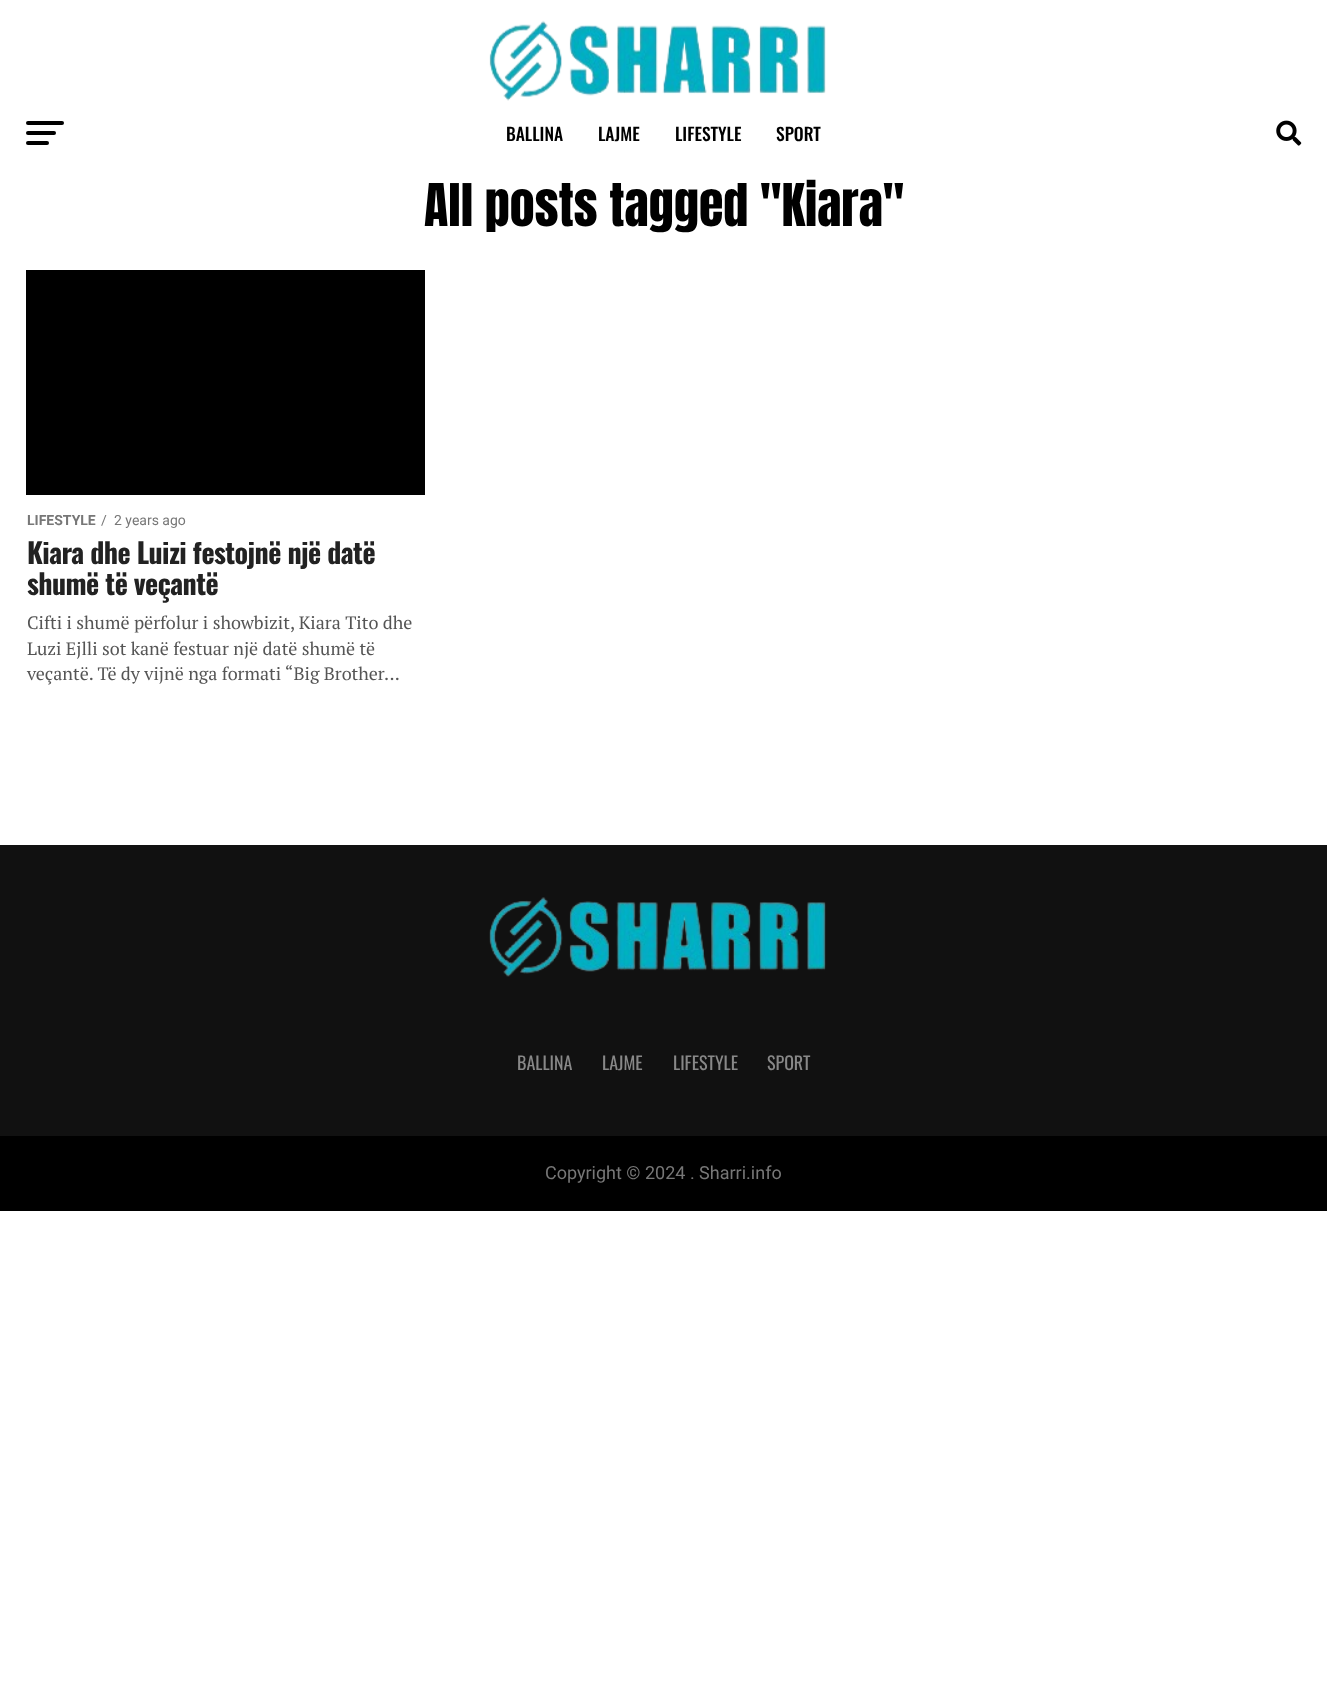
<svg xmlns="http://www.w3.org/2000/svg" width="1327" height="1706" viewBox="0 0 1327 1706">
  <rect width="100%" height="100%" fill="#fff"/>
  <image x="489" y="20" width="337" height="81" href="img/1.png"/>
  <rect x="26" y="121" width="38" height="4" rx="2" fill="#000"/>
  <rect x="26" y="131" width="30" height="4" rx="2" fill="#000"/>
  <rect x="26" y="141" width="23" height="4" rx="2" fill="#000"/>
  <image x="1276" y="120" width="26" height="26" href="img/2.png"/>
  <path d="M26 270h399v225H26z" fill="#000"/>
  <path d="M0 845h1327v291H0z" fill="#111"/>
  <image x="489" y="897" width="337" height="80" href="img/3.png"/>
  <path d="M0 1136h1327v75H0z" fill="#000"/>
  <g font-family="Oswald" font-size="17.5" font-weight="500" fill="#000">
    <text x="506" y="141">BALLINA</text>
    <text x="598" y="141">LAJME</text>
    <text x="675" y="141">LIFESTYLE</text>
    <text x="776" y="141">SPORT</text>
  </g>
  <text x="424" y="226" font-family="Anton" font-size="50" fill="#000">All posts tagged "Kiara"</text>
  <text x="27" y="525" font-family="Roboto" font-size="14" font-weight="bold" fill="#777">LIFESTYLE</text>
  <g font-family="Roboto" font-size="14" fill="#777">
    <text x="101" y="525">/</text>
    <text x="114" y="525">2 years ago</text>
  </g>
  <g font-family="Oswald" font-size="28" font-weight="bold" letter-spacing="-0.55" fill="#222">
    <text x="27" y="564">Kiara dhe Luizi festojnë një datë</text>
    <text x="27" y="595">shumë të veçantë</text>
  </g>
  <g font-family="PT Serif" font-size="18" fill="#555">
    <text x="27" y="629">Cifti i shumë përfolur i showbizit, Kiara Tito dhe</text>
    <text x="27" y="655">Luzi Ejlli sot kanë festuar një datë shumë të</text>
    <text x="27" y="680">veçantë. Të dy vijnë nga formati “Big Brother...</text>
  </g>
  <g font-family="Oswald" font-size="18" fill="#888">
    <text x="517" y="1070">BALLINA</text>
    <text x="602" y="1070">LAJME</text>
    <text x="673" y="1070">LIFESTYLE</text>
    <text x="767" y="1070">SPORT</text>
  </g>
  <text x="545" y="1179" font-family="Roboto" font-size="18" fill="#777">Copyright © 2024 . Sharri.info</text>
</svg>
